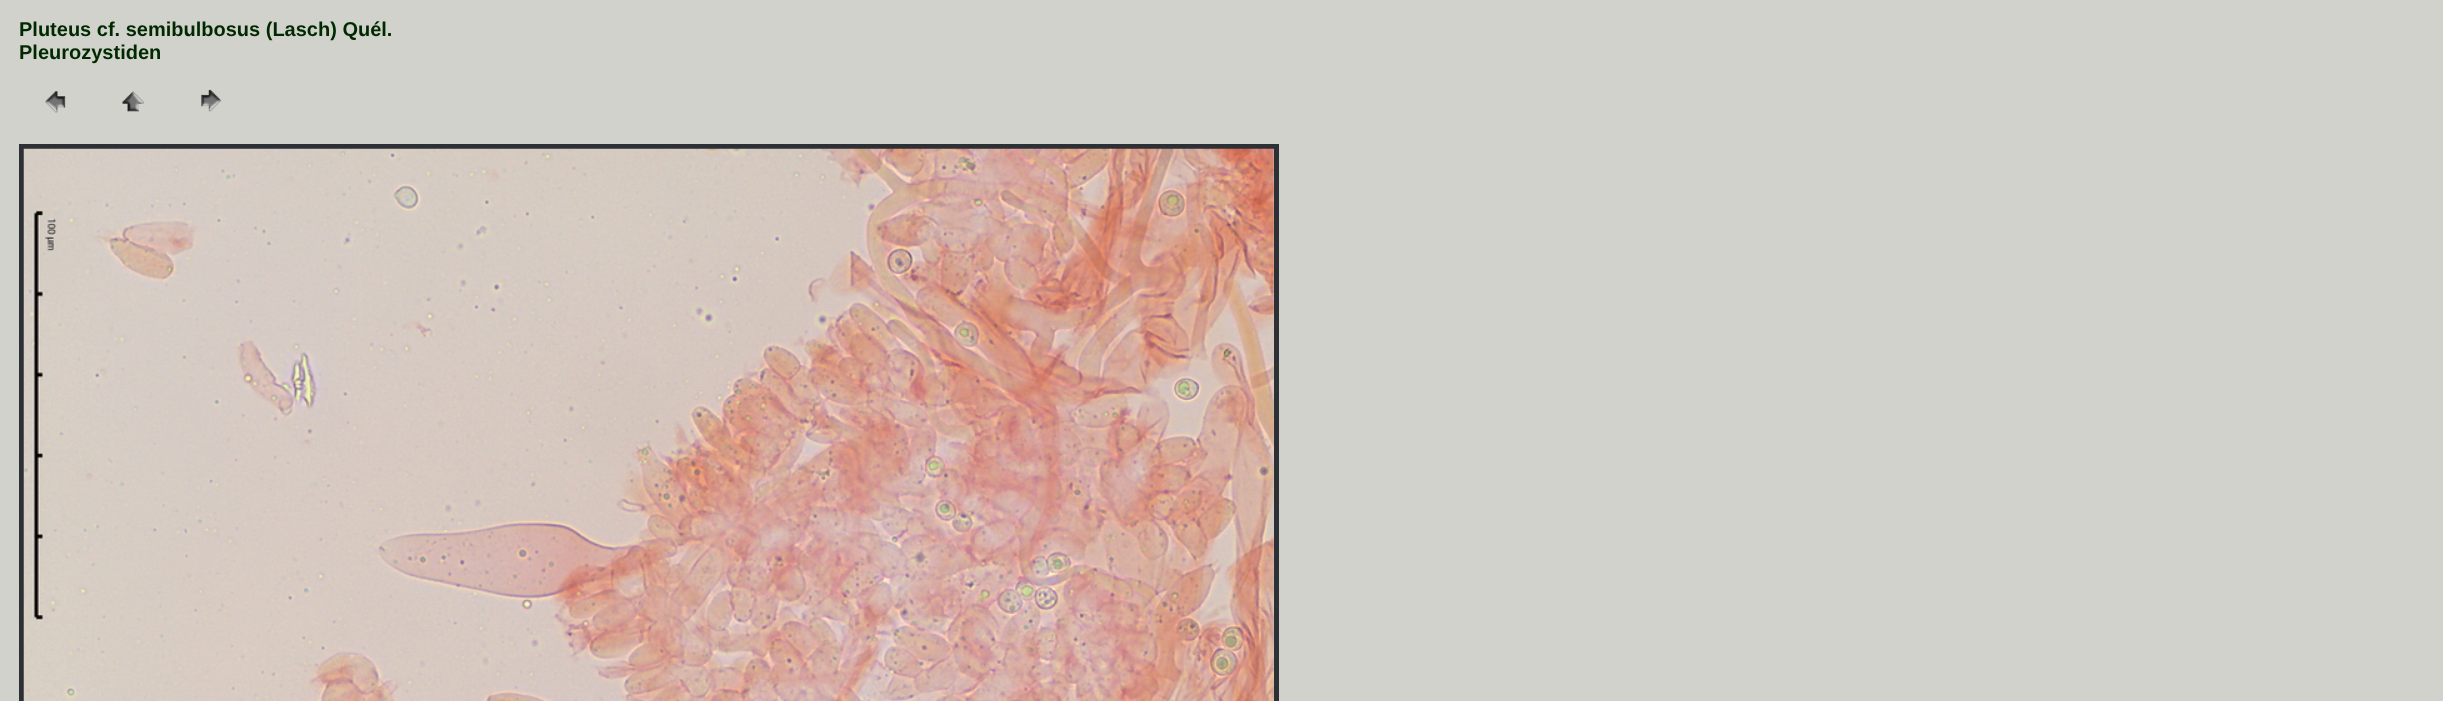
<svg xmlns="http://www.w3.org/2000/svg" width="2443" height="701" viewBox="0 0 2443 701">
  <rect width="100%" height="100%" fill="#d2d2cd"/>
  <image x="45" y="91" width="21" height="22" href="img/1.png"/>
  <image x="122" y="91" width="22" height="21" href="img/2.png"/>
  <image x="201" y="89" width="21" height="23" href="img/3.png"/>
  <path d="M21.5 146.5h1255v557H21.5z" fill="none" stroke="#2d3034" stroke-width="5"/>
  <image x="23" y="148" width="1251" height="553" href="img/4.png"/>
  <g font-family="Liberation Sans" font-size="20" font-weight="bold" fill="#002900">
    <text x="19" y="36">Pluteus cf. semibulbosus (Lasch) Quél.</text>
    <text x="19" y="59">Pleurozystiden</text>
  </g>
</svg>
